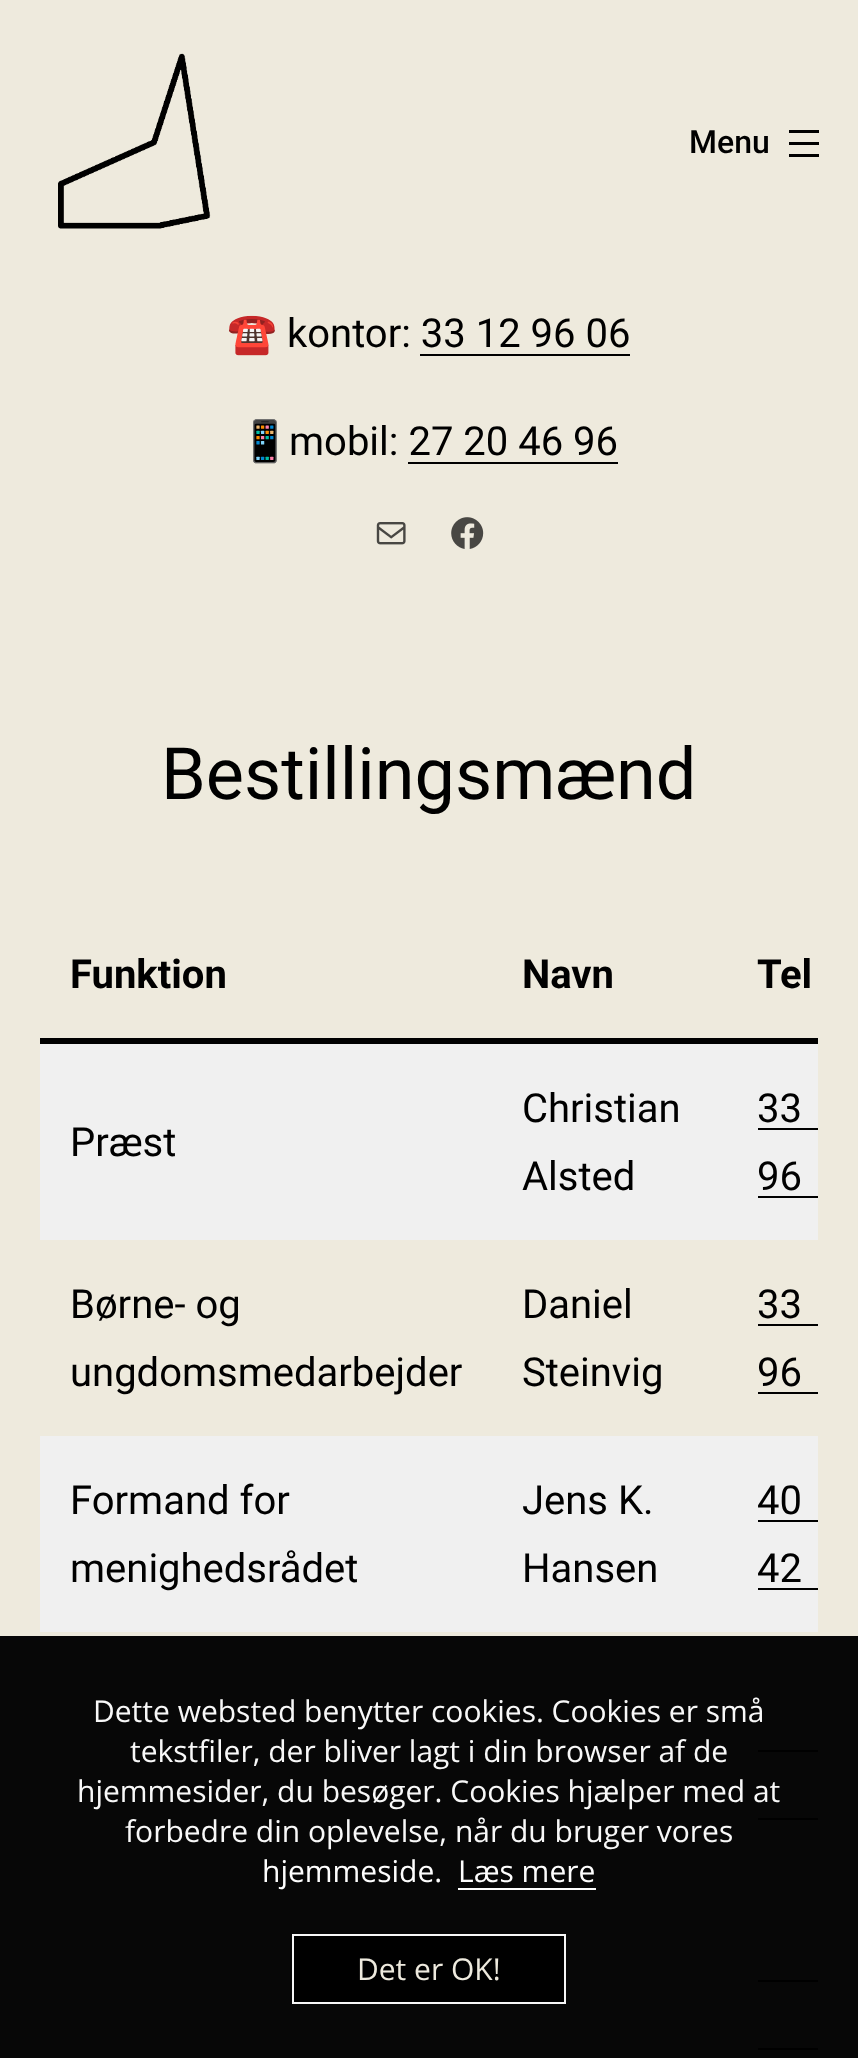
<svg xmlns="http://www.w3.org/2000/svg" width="858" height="2058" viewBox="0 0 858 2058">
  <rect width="100%" height="100%" fill="#eeeadd"/>
  <path d="M0 1636h858v422H0z" fill="#070707"/>
  <image x="58" y="53" width="153" height="176" href="img/1.png"/>
  <image x="789" y="130" width="30" height="27" href="img/2.png"/>
  <path d="M420 354h210v2H420z" fill="#000"/>
  <path d="M408 462h210v2H408z" fill="#000"/>
  <image x="376" y="522" width="30" height="23" href="img/3.png"/>
  <image x="451" y="517" width="33" height="32" href="img/4.png"/>
  <path d="M40 1038h778v6H40z" fill="#000"/>
  <path d="M40 1044h778v196H40z" fill="#f0f0f0"/>
  <path d="M758 1128h60v2H758z" fill="#000"/>
  <path d="M758 1196h60v2H758z" fill="#000"/>
  <path d="M758 1324h60v2H758z" fill="#000"/>
  <path d="M758 1392h60v2H758z" fill="#000"/>
  <path d="M40 1436h778v196H40z" fill="#f0f0f0"/>
  <path d="M758 1520h60v2H758z" fill="#000"/>
  <path d="M758 1588h60v2H758z" fill="#000"/>
  <path d="M758 1750h60v2H758z" fill="#000"/>
  <path d="M758 1818h60v2H758z" fill="#000"/>
  <path d="M758 1980h60v2H758z" fill="#000"/>
  <path d="M758 2048h60v2H758z" fill="#000"/>
  <path d="M458 1888h138v2H458z" fill="#fefefe"/>
  <path d="M293 1935h272v68H293z" fill="#000000f7" stroke="#f7f7f7" stroke-width="2"/>
  <text x="689" y="153" font-family="Roboto" font-size="32" font-weight="500" fill="#000">Menu</text>
  <text x="227" y="347" font-family="Noto Color Emoji" font-size="40" fill="#000">☎️</text>
  <text x="287" y="347" font-family="Roboto" font-size="40" fill="#000">kontor: 33 12 96 06</text>
  <text x="240" y="455" font-family="Noto Color Emoji" font-size="40" fill="#000">📱</text>
  <text x="289" y="455" font-family="Roboto" font-size="40" fill="#000">mobil: 27 20 46 96</text>
  <text x="161" y="799" font-family="Roboto" font-size="72" fill="#000">Bestillingsmænd</text>
  <g font-family="Roboto" font-size="40" font-weight="bold" fill="#000">
    <text x="70" y="988">Funktion</text>
    <text x="522" y="988">Navn</text>
    <text x="757" y="988">Tel</text>
  </g>
  <g font-family="Roboto" font-size="40" fill="#000">
    <text x="70" y="1156">Præst</text>
    <text x="522" y="1122">Christian</text>
    <text x="522" y="1190">Alsted</text>
    <text x="757" y="1122">33</text>
    <text x="757" y="1190">96</text>
    <text x="70" y="1318">Børne- og</text>
    <text x="70" y="1386">ungdomsmedarbejder</text>
    <text x="522" y="1318">Daniel</text>
    <text x="522" y="1386">Steinvig</text>
    <text x="757" y="1318">33</text>
    <text x="757" y="1386">96</text>
    <text x="70" y="1514">Formand for</text>
    <text x="70" y="1582">menighedsrådet</text>
    <text x="522" y="1514">Jens K.</text>
    <text x="522" y="1582">Hansen</text>
    <text x="757" y="1514">40</text>
    <text x="757" y="1582">42</text>
  </g>
  <g font-family="Open Sans" font-size="30" fill="#f8f8f8">
    <text x="93" y="1722">Dette websted benytter cookies. Cookies er små</text>
    <text x="130" y="1762">tekstfiler, der bliver lagt i din browser af de</text>
    <text x="77" y="1802">hjemmesider, du besøger. Cookies hjælper med at</text>
    <text x="125" y="1842">forbedre din oplevelse, når du bruger vores</text>
  </g>
  <g font-family="Open Sans" font-size="30" fill="#fefefe">
    <text x="262" y="1882">hjemmeside.</text>
    <text x="458" y="1882">Læs mere</text>
  </g>
  <text x="357" y="1980" font-family="Open Sans" font-size="30" fill="#eeeade">Det er OK!</text>
</svg>
